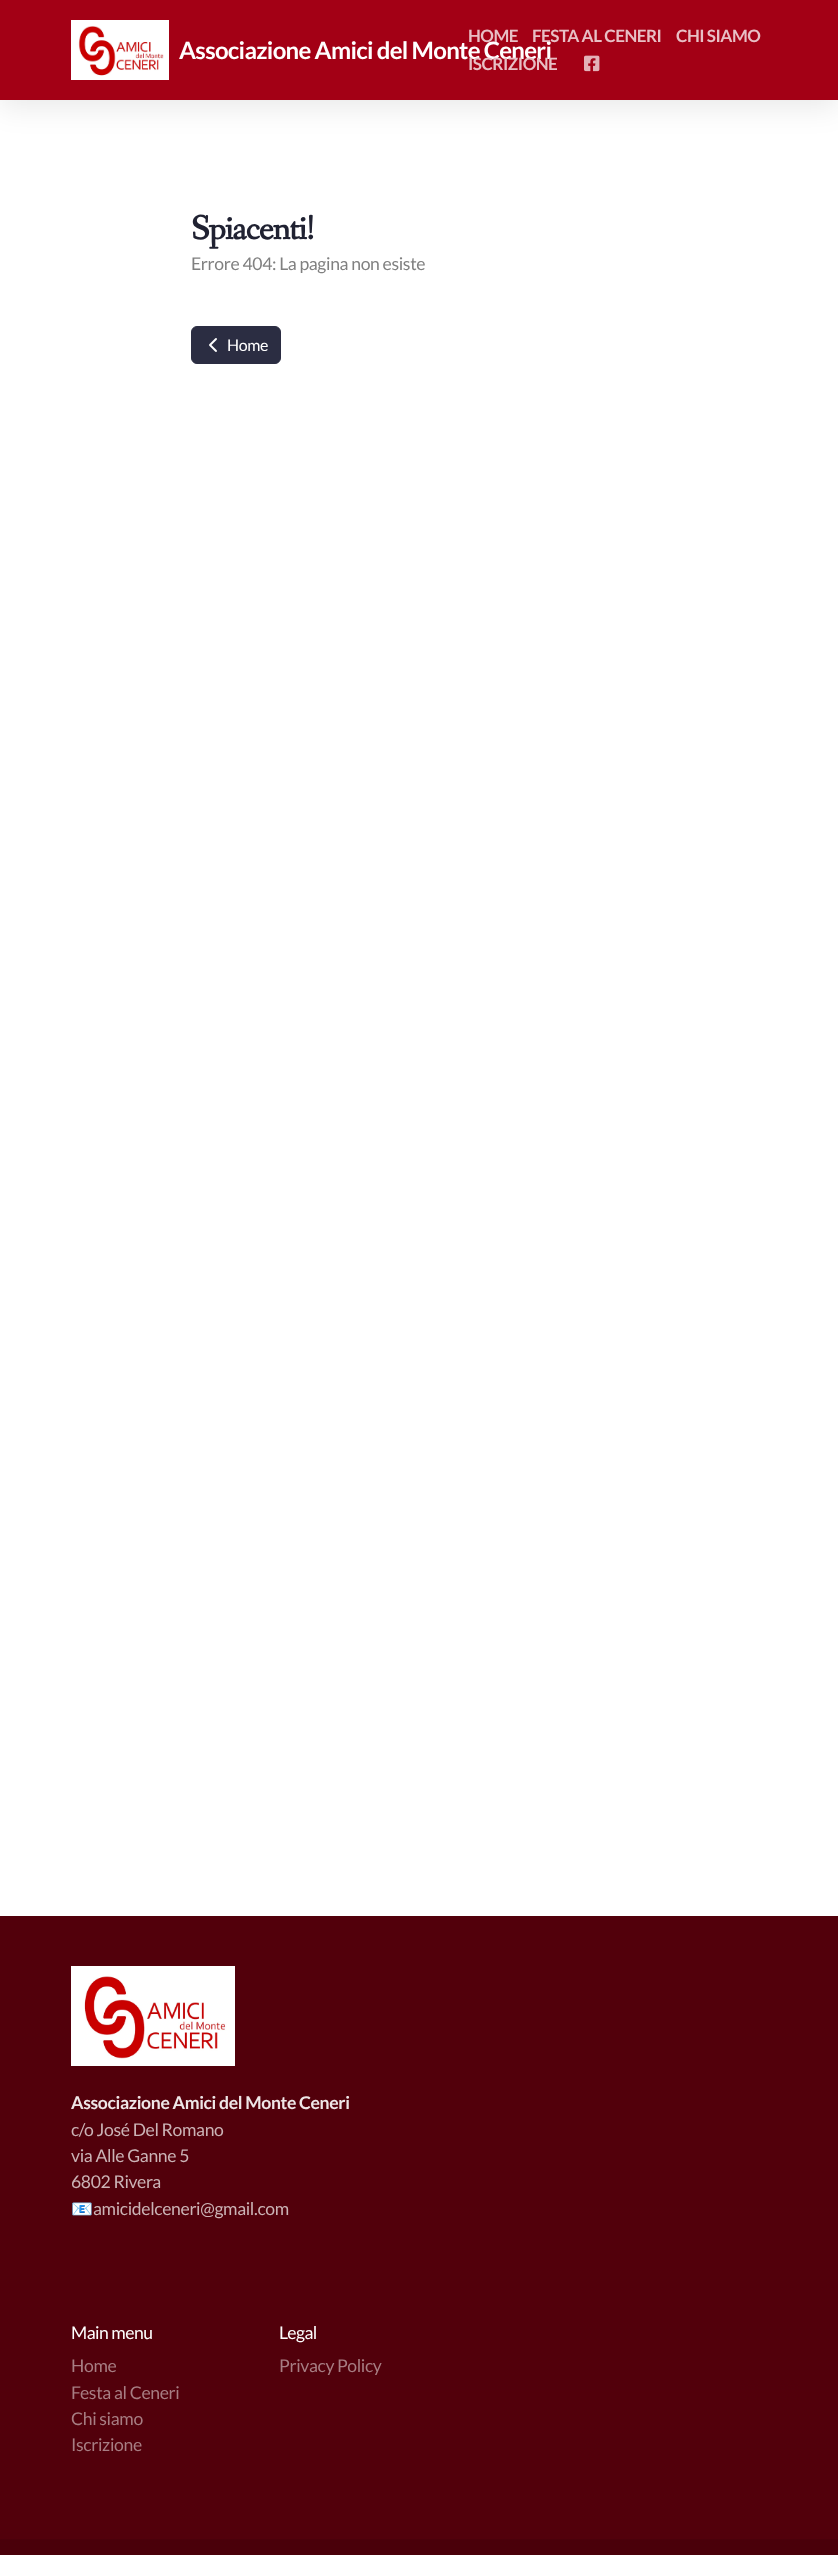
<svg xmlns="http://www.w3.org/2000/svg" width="838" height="2555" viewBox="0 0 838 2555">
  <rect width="100%" height="100%" fill="#fff"/>
  <path d="M0 7h838v100H0z" fill="#00000017" filter="blur(14.5px)"/>
  <path d="M0 0h838v100H0z" fill="#a30015"/>
  <image x="71" y="20" width="98" height="60" href="img/1.png"/>
  <image x="584" y="55" width="16" height="17" href="img/2.png"/>
  <rect x="191.5" y="326.5" width="89" height="37" rx="5.5" fill="#2b2d42" stroke="#2b2d42"/>
  <image x="209" y="338" width="8" height="14" href="img/3.png"/>
  <path d="M0 1916h838v623H0z" fill="#52000b"/>
  <image x="71" y="1966" width="164" height="100" href="img/4.png"/>
  <path d="M0 2539h838v16H0z" fill="#4a000a"/>
  <text x="179" y="59" font-family="Lato" font-size="24" font-weight="bold" letter-spacing="-0.7" fill="#fff">Associazione Amici del Monte Ceneri</text>
  <g font-family="Lato" font-size="17" font-weight="bold" letter-spacing="-0.5" fill="#e8bfc5">
    <text x="468" y="42">HOME</text>
    <text x="532" y="42">FESTA AL CENERI</text>
    <text x="676" y="42">CHI SIAMO</text>
    <text x="468" y="70">ISCRIZIONE</text>
  </g>
  <text x="191" y="239" font-family="Fanwood Text" font-size="34.5" font-weight="bold" letter-spacing="-1" fill="#202232">Spiacenti!</text>
  <text x="191" y="270" font-family="Lato" font-size="17.6" letter-spacing="-0.35" fill="#808080">Errore 404: La pagina non esiste</text>
  <text x="227" y="351" font-family="Lato" font-size="16" letter-spacing="-0.35" fill="#fff">Home</text>
  <text x="71" y="2109" font-family="Lato" font-size="17.6" font-weight="bold" letter-spacing="-0.35" fill="#eee6e7">Associazione Amici del Monte Ceneri</text>
  <g font-family="Lato" font-size="17.6" letter-spacing="-0.35" fill="#cbb3b6">
    <text x="71" y="2136">c/o José Del Romano</text>
    <text x="71" y="2162">via Alle Ganne 5</text>
    <text x="71" y="2188">6802 Rivera</text>
  </g>
  <text x="71" y="2215" font-family="Noto Color Emoji" font-size="17.6" letter-spacing="-0.35" fill="#cbb3b6">📧</text>
  <text x="93" y="2215" font-family="Lato" font-size="17.6" letter-spacing="-0.35" fill="#cbb3b6">amicidelceneri@gmail.com</text>
  <text x="71" y="2339" font-family="Lato" font-size="17.6" letter-spacing="-0.5" fill="#fff">Main menu</text>
  <g font-family="Lato" font-size="17.6" letter-spacing="-0.35" fill="#a77d83">
    <text x="71" y="2372">Home</text>
    <text x="71" y="2399">Festa al Ceneri</text>
    <text x="71" y="2425">Chi siamo</text>
    <text x="71" y="2451">Iscrizione</text>
  </g>
  <text x="279" y="2339" font-family="Lato" font-size="17.6" letter-spacing="-0.5" fill="#fff">Legal</text>
  <text x="279" y="2372" font-family="Lato" font-size="17.6" letter-spacing="-0.35" fill="#a77d83">Privacy Policy</text>
</svg>
